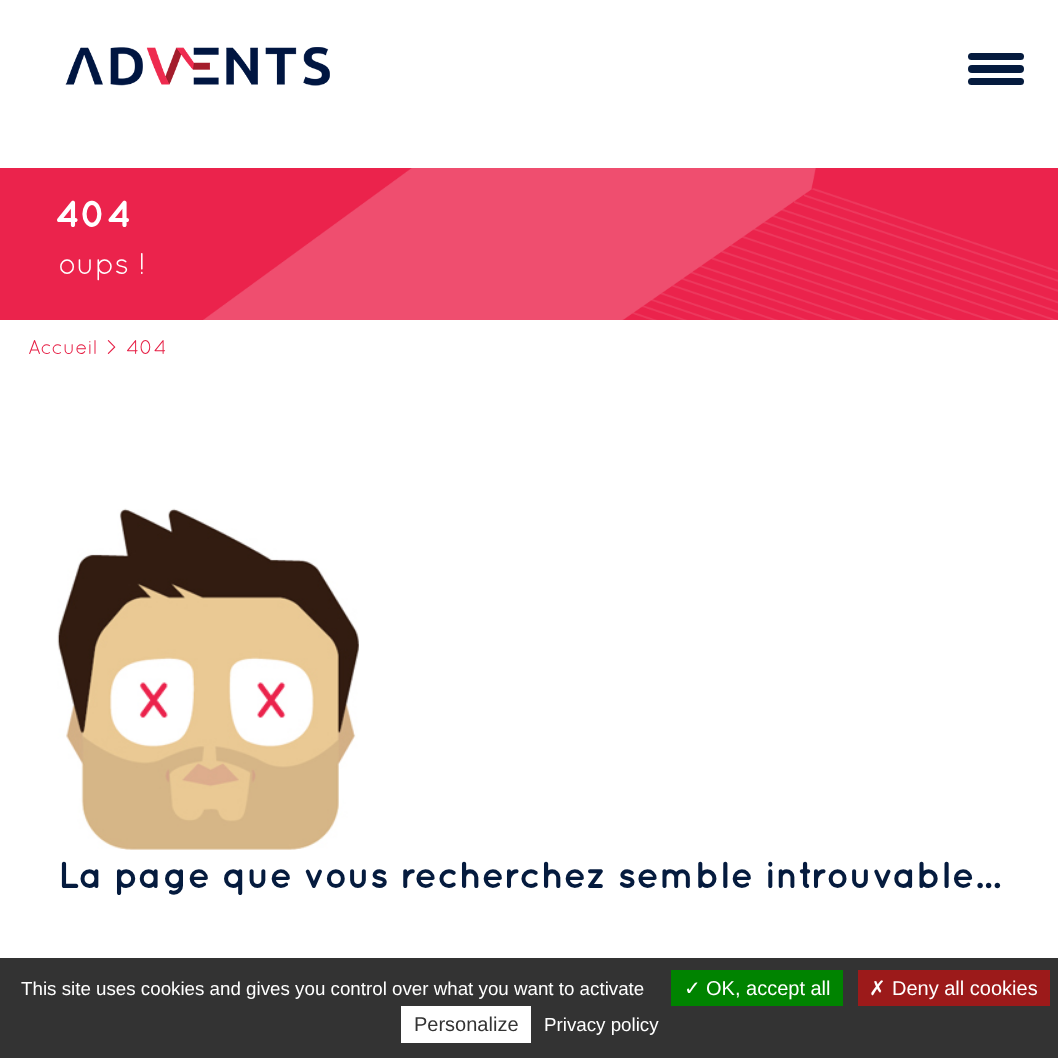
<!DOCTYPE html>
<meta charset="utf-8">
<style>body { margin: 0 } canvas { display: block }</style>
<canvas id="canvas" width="1058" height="1058"></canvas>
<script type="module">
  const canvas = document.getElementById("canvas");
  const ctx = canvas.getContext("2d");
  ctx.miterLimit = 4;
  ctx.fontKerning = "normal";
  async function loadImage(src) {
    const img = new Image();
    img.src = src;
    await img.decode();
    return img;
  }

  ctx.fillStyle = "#ffffff";
  ctx.fillRect(0, 0, 1058, 1058);
  ctx.drawImage(await loadImage("img1.png"), 65, 47, 265, 39);
  ctx.fillStyle = "#051b3e";
  ctx.beginPath();
  ctx.roundRect(968, 53, 56, 7, 3.5);
  ctx.fill();
  ctx.beginPath();
  ctx.roundRect(968, 65, 56, 8, 4);
  ctx.fill();
  ctx.beginPath();
  ctx.roundRect(968, 78, 56, 7, 3.5);
  ctx.fill();
  ctx.fillStyle = "#eb234c";
  ctx.fillRect(0, 168, 1058, 152);
  ctx.drawImage(await loadImage("img2.png"), 203, 168, 855, 152);
  ctx.font = "bold 37.5px Quicksand";
  ctx.fillStyle = "#ffffff";
  ctx.fillText("404", 55, 227);
  ctx.font = "30px Quicksand";
  ctx.fillText("oups !", 58, 274);
  ctx.font = "20px Quicksand";
  ctx.fillStyle = "#e61e44";
  ctx.fillText("Accueil", 28, 354);
  ctx.fillText(">", 106, 354);
  ctx.fillText("404", 126, 354);
  ctx.drawImage(await loadImage("img3.png"), 57, 508, 302, 342);
  ctx.font = "bold 37.5px Quicksand";
  ctx.fillStyle = "#051b3e";
  ctx.fillText("La page que vous recherchez semble introuvable...", 58, 888);
  ctx.fillStyle = "#333333";
  ctx.fillRect(0, 958, 1058, 100);
  ctx.font = "18.75px Liberation Sans";
  ctx.fillStyle = "#ffffff";
  ctx.fillText("This site uses cookies and gives you control over what you want to activate", 21, 995);
  ctx.fillStyle = "#008300";
  ctx.fillRect(671, 970, 172, 36);
  ctx.font = "20px DejaVu Sans";
  ctx.fillStyle = "#ffffff";
  ctx.fillText("✓", 684, 995);
  ctx.font = "20px Liberation Sans";
  ctx.fillText("OK, accept all", 706, 995);
  ctx.fillStyle = "#9c1a1a";
  ctx.fillRect(858, 970, 192, 36);
  ctx.font = "20px DejaVu Sans";
  ctx.fillStyle = "#ffffff";
  ctx.fillText("✗", 869, 995);
  ctx.font = "20px Liberation Sans";
  ctx.fillText("Deny all cookies", 892, 995);
  ctx.fillRect(401, 1006, 130, 37);
  ctx.fillStyle = "#333333";
  ctx.fillText("Personalize", 414, 1031);
  ctx.font = "18.75px Liberation Sans";
  ctx.fillStyle = "#ffffff";
  ctx.fillText("Privacy policy", 544, 1031);
</script>
